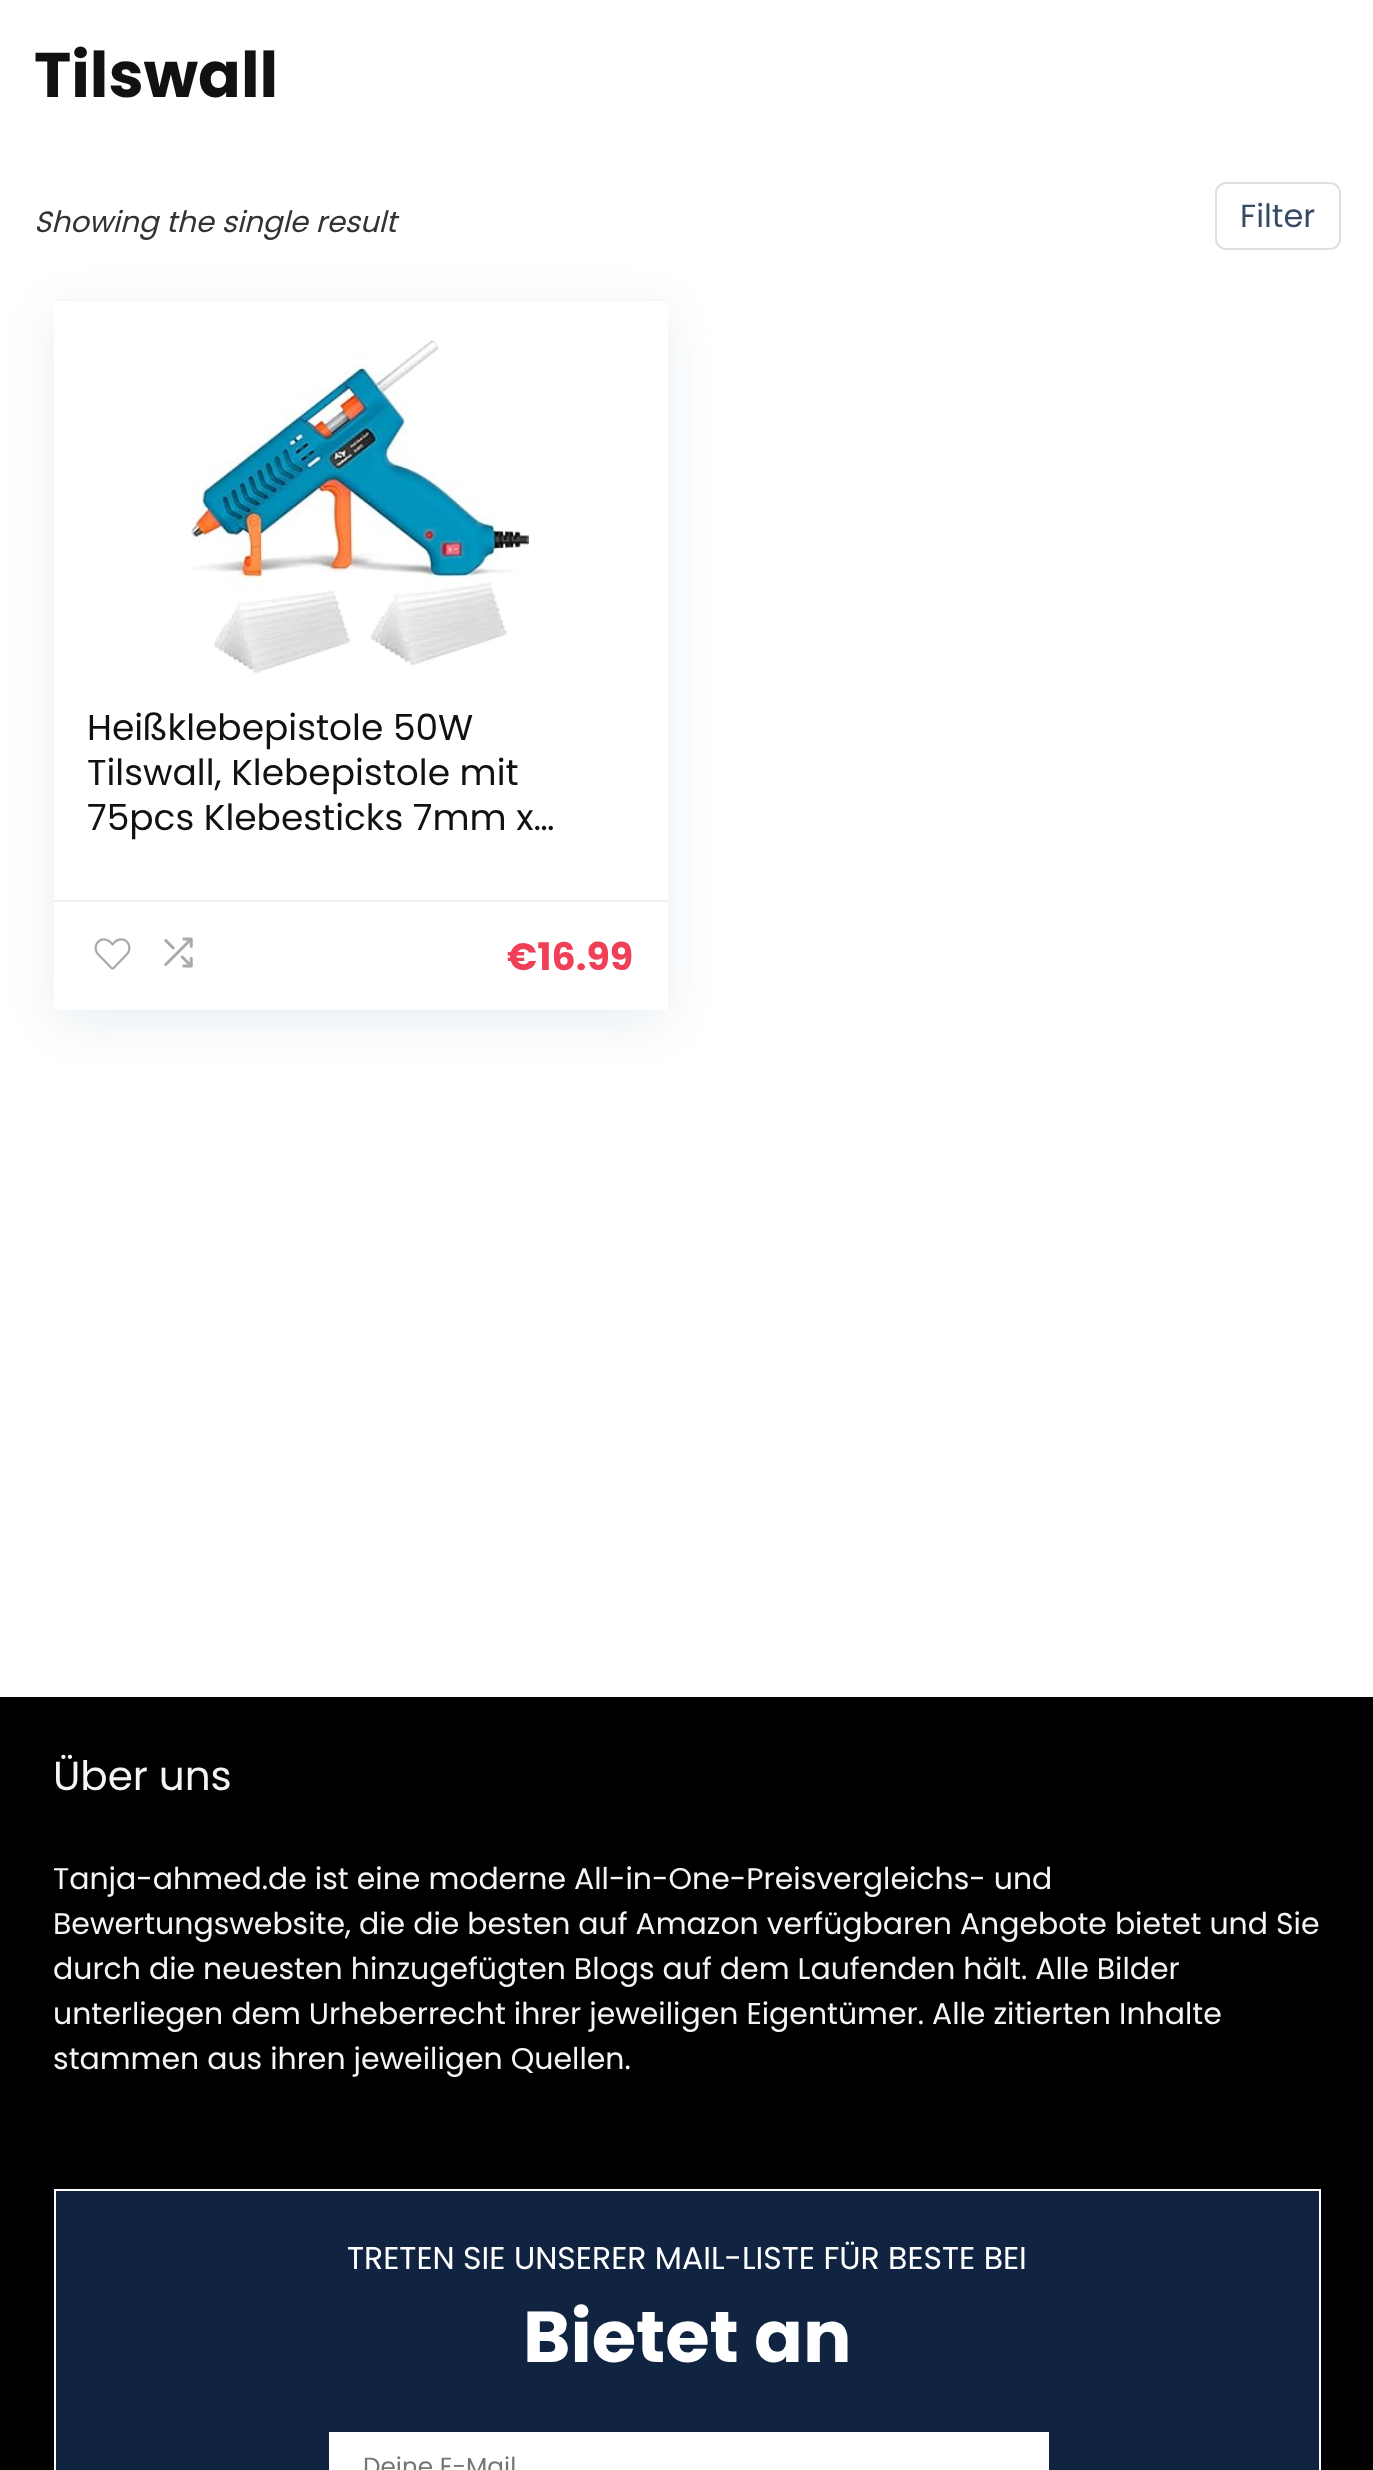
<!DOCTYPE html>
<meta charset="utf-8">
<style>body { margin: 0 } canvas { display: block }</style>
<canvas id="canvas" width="1373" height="2470"></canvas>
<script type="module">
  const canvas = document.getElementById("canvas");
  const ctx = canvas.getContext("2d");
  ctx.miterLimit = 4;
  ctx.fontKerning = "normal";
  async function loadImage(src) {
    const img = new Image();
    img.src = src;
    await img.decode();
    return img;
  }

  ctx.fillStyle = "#ffffff";
  ctx.fillRect(0, 0, 1373, 2470);
  ctx.font = "bold 63px Poppins";
  ctx.fillStyle = "#111111";
  ctx.fillText("Tilswall", 34, 97);
  ctx.font = "italic 29.25px Poppins";
  ctx.fillStyle = "#333333";
  ctx.fillText("Showing the single result", 34, 232);
  ctx.beginPath();
  ctx.roundRect(1216, 183, 124, 66, 10);
  ctx.strokeStyle = "#dce0e0";
  ctx.lineWidth = 2;
  ctx.stroke();
  ctx.font = "32px Poppins";
  ctx.fillStyle = "#364c66";
  ctx.fillText("Filter", 1240, 227);
  ctx.fillStyle = "rgba(188, 207, 219, 0.35)";
  ctx.filter = "blur(26px)";
  ctx.beginPath();
  ctx.rect(54, 311, 614, 711);
  ctx.fill();
  ctx.filter = "none";
  ctx.fillStyle = "#ffffff";
  ctx.fillRect(54, 301, 614, 709);
  ctx.fillStyle = "#f8f8f8";
  ctx.fillRect(54, 299, 614, 2);
  ctx.drawImage(await loadImage("img1.png"), 191, 339, 338, 334);
  ctx.font = "36px Poppins";
  ctx.fillStyle = "#111111";
  ctx.fillText("Heißklebepistole 50W", 87, 740);
  ctx.fillText("Tilswall, Klebepistole mit", 87, 785);
  ctx.fillText("75pcs Klebesticks 7mm x…", 87, 830);
  ctx.fillStyle = "#f0f0f0";
  ctx.fillRect(54, 900, 614, 2);
  ctx.drawImage(await loadImage("img2.png"), 94, 938, 37, 32);
  ctx.drawImage(await loadImage("img3.png"), 164, 937, 29, 31);
  ctx.font = "bold 38px Poppins";
  ctx.fillStyle = "#f04057";
  ctx.fillText("€16.99", 507, 970);
  ctx.fillStyle = "#000000";
  ctx.fillRect(0, 1697, 1373, 773);
  ctx.font = "40.5px Poppins";
  ctx.fillStyle = "#f5f5f5";
  ctx.fillText("Über uns", 53, 1790);
  ctx.font = "29.95px Poppins";
  ctx.fillText("Tanja-ahmed.de ist eine moderne All-in-One-Preisvergleichs- und", 53, 1889);
  ctx.fillText("Bewertungswebsite, die die besten auf Amazon verfügbaren Angebote bietet und Sie", 53, 1934);
  ctx.fillText("durch die neuesten hinzugefügten Blogs auf dem Laufenden hält. Alle Bilder", 53, 1979);
  ctx.fillText("unterliegen dem Urheberrecht ihrer jeweiligen Eigentümer. Alle zitierten Inhalte", 53, 2024);
  ctx.fillText("stammen aus ihren jeweiligen Quellen.", 53, 2069);
  ctx.fillStyle = "#102341";
  ctx.beginPath();
  ctx.rect(55, 2190, 1265, 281);
  ctx.fill();
  ctx.strokeStyle = "#ffffff";
  ctx.stroke();
  ctx.font = "31.5px Poppins";
  ctx.fillStyle = "#ffffff";
  ctx.fillText("TRETEN SIE UNSERER MAIL-LISTE FÜR BESTE BEI", 347, 2269);
  ctx.font = "bold 72px Poppins";
  ctx.fillText("Bietet an", 523, 2362);
  ctx.fillRect(329, 2432, 720, 38);
  ctx.font = "24.75px Poppins";
  ctx.fillStyle = "#757575";
  ctx.fillText("Deine E-Mail", 363, 2475);
</script>
